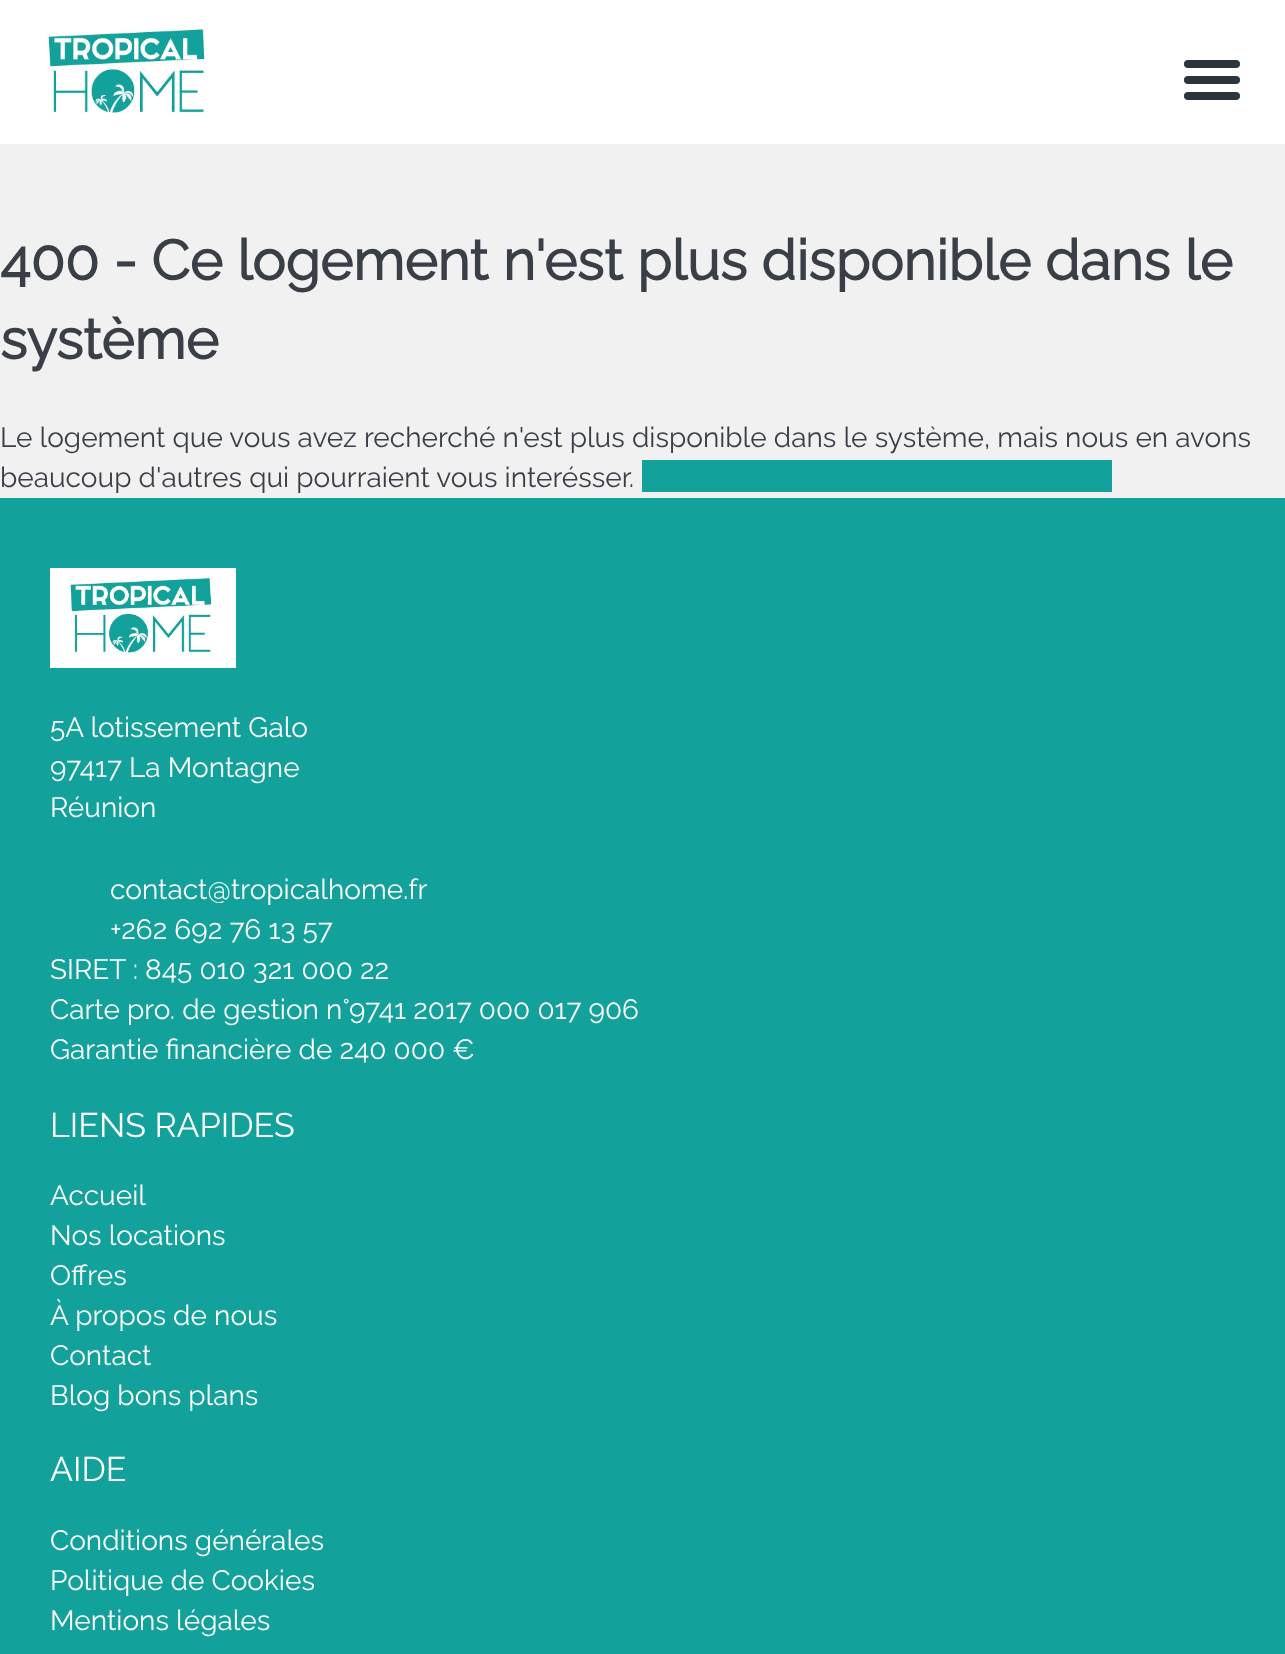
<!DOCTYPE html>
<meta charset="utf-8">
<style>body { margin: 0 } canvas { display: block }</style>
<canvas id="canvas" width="1285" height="1654"></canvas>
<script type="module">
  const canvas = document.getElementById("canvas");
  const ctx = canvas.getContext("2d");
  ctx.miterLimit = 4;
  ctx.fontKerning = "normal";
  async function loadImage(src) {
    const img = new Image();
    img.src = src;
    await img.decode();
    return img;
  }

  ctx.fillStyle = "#f1f1f1";
  ctx.fillRect(0, 0, 1285, 1654);
  ctx.fillStyle = "#ffffff";
  ctx.fillRect(0, 0, 1285, 144);
  ctx.drawImage(await loadImage("img1.png"), 48, 29, 157, 84);
  ctx.fillStyle = "#2b333d";
  ctx.beginPath();
  ctx.roundRect(1184, 60, 56, 8, 4);
  ctx.fill();
  ctx.beginPath();
  ctx.roundRect(1184, 76, 56, 8, 4);
  ctx.fill();
  ctx.beginPath();
  ctx.roundRect(1184, 92, 56, 8, 4);
  ctx.fill();
  ctx.font = "bold 56px Raleway";
  ctx.fillStyle = "#393e47";
  ctx.fillText("400 - Ce logement n'est plus disponible dans le", 0, 280);
  ctx.fillText("système", 0, 359);
  ctx.font = "28px Raleway";
  ctx.fillText("Le logement que vous avez recherché n'est plus disponible dans le système, mais nous en avons", 0, 447);
  ctx.fillText("beaucoup d'autres qui pourraient vous interésser.", 0, 487);
  ctx.fillStyle = "#12a19b";
  ctx.fillRect(642, 460, 470, 32);
  ctx.fillRect(0, 498, 1285, 1156);
  ctx.drawImage(await loadImage("img2.png"), 50, 568, 186, 100);
  ctx.fillStyle = "#ffffff";
  ctx.fillText("5A lotissement Galo", 50, 737);
  ctx.fillText("97417 La Montagne", 50, 777);
  ctx.fillText("Réunion", 50, 817);
  ctx.fillText("contact@tropicalhome.fr", 110, 899);
  ctx.fillText("+262 692 76 13 57", 110, 939);
  ctx.fillText("SIRET : 845 010 321 000 22", 50, 979);
  ctx.fillText("Carte pro. de gestion n°9741 2017 000 017 906", 50, 1019);
  ctx.fillText("Garantie financière de 240 000 €", 50, 1059);
  ctx.font = "34px Raleway";
  ctx.fillText("LIENS RAPIDES", 50, 1137);
  ctx.font = "28px Raleway";
  ctx.fillText("Accueil", 50, 1205);
  ctx.fillText("Nos locations", 50, 1245);
  ctx.fillText("Offres", 50, 1285);
  ctx.fillText("À propos de nous", 50, 1325);
  ctx.fillText("Contact", 50, 1365);
  ctx.fillText("Blog bons plans", 50, 1405);
  ctx.font = "34px Raleway";
  ctx.fillText("AIDE", 50, 1481);
  ctx.font = "28px Raleway";
  ctx.fillText("Conditions générales", 50, 1550);
  ctx.fillText("Politique de Cookies", 50, 1590);
  ctx.fillText("Mentions légales", 50, 1630);
</script>
